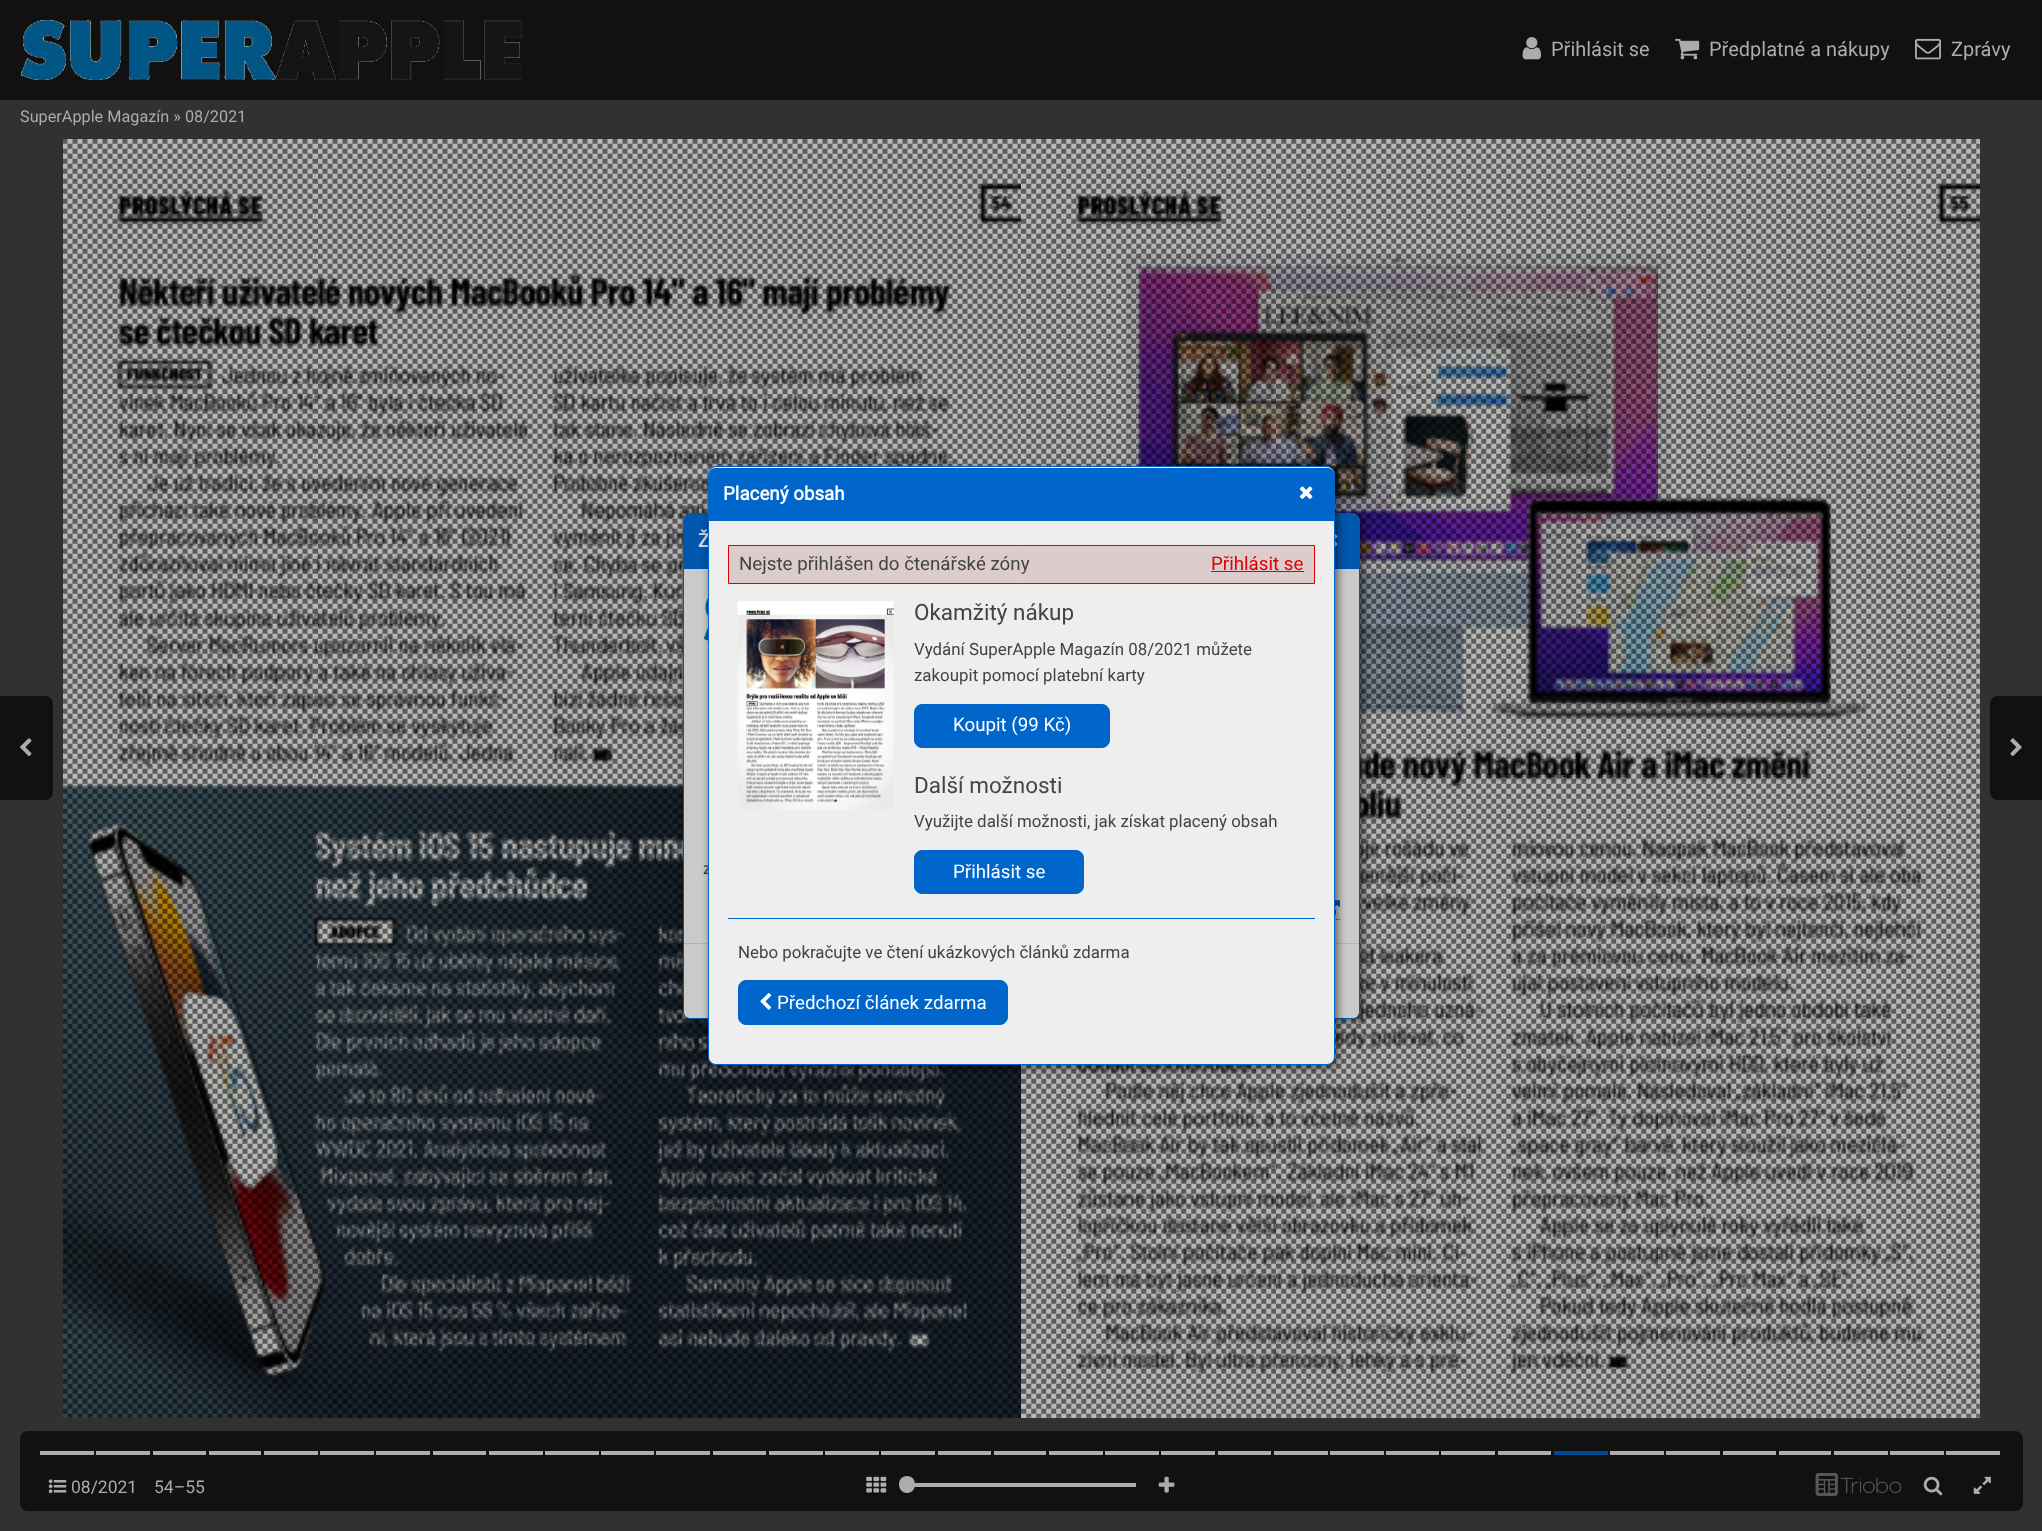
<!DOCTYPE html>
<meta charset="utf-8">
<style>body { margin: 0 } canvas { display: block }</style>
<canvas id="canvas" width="2042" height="1531"></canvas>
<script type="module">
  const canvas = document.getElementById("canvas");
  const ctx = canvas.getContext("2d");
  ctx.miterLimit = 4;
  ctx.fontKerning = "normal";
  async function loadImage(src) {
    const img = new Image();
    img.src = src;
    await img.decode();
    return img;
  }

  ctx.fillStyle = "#313131";
  ctx.fillRect(0, 0, 2042, 1531);
  ctx.fillStyle = "#111111";
  ctx.fillRect(0, 0, 2042, 100);
  ctx.drawImage(await loadImage("img1.png"), 20, 20, 502, 60);
  ctx.drawImage(await loadImage("img2.png"), 1522, 37, 20, 23);
  ctx.font = "20px Roboto";
  ctx.fillStyle = "#acacac";
  ctx.fillText("Přihlásit se", 1551, 56);
  ctx.drawImage(await loadImage("img3.png"), 1675, 38, 25, 22);
  ctx.fillText("Předplatné a nákupy", 1709, 56);
  ctx.drawImage(await loadImage("img4.png"), 1915, 38, 26, 22);
  ctx.fillText("Zprávy", 1951, 56);
  ctx.font = "16.25px Roboto";
  ctx.fillText("SuperApple Magazín » 08/2021", 20, 122);
  ctx.fillStyle = "#111111";
  ctx.beginPath();
  ctx.roundRect(0, 696, 53, 104, [0, 8, 8, 0]);
  ctx.fill();
  ctx.drawImage(await loadImage("img5.png"), 20, 738, 12, 19);
  ctx.beginPath();
  ctx.moveTo(1998, 696);
  ctx.lineTo(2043, 696);
  ctx.lineTo(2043, 800);
  ctx.lineTo(1998, 800);
  ctx.bezierCurveTo(1993.5, 800, 1990, 796.5, 1990, 792);
  ctx.lineTo(1990, 704);
  ctx.bezierCurveTo(1990, 699.5, 1993.5, 696, 1998, 696);
  ctx.closePath();
  ctx.fill();
  ctx.drawImage(await loadImage("img6.png"), 2010, 738, 12, 19);
  ctx.beginPath();
  ctx.roundRect(20, 1431, 2003, 80, 8);
  ctx.fill();
  ctx.fillStyle = "#acacac";
  ctx.fillRect(40, 1451, 54, 4);
  ctx.fillRect(96, 1451, 54, 4);
  ctx.fillRect(153, 1451, 53, 4);
  ctx.fillRect(209, 1451, 52, 4);
  ctx.fillRect(264, 1451, 54, 4);
  ctx.fillRect(320, 1451, 54, 4);
  ctx.fillRect(376, 1451, 54, 4);
  ctx.fillRect(433, 1451, 53, 4);
  ctx.fillRect(489, 1451, 54, 4);
  ctx.fillRect(545, 1451, 54, 4);
  ctx.fillRect(601, 1451, 53, 4);
  ctx.fillRect(656, 1451, 54, 4);
  ctx.fillRect(713, 1451, 53, 4);
  ctx.fillRect(769, 1451, 54, 4);
  ctx.fillRect(825, 1451, 54, 4);
  ctx.fillRect(881, 1451, 54, 4);
  ctx.fillRect(938, 1451, 53, 4);
  ctx.fillRect(994, 1451, 52, 4);
  ctx.fillRect(1049, 1451, 54, 4);
  ctx.fillRect(1105, 1451, 54, 4);
  ctx.fillRect(1161, 1451, 54, 4);
  ctx.fillRect(1218, 1451, 53, 4);
  ctx.fillRect(1274, 1451, 54, 4);
  ctx.fillRect(1330, 1451, 54, 4);
  ctx.fillRect(1386, 1451, 53, 4);
  ctx.fillRect(1441, 1451, 54, 4);
  ctx.fillRect(1498, 1451, 53, 4);
  ctx.fillRect(1610, 1451, 54, 4);
  ctx.fillRect(1666, 1451, 54, 4);
  ctx.fillRect(1723, 1451, 53, 4);
  ctx.fillRect(1779, 1451, 52, 4);
  ctx.fillRect(1834, 1451, 54, 4);
  ctx.fillRect(1890, 1451, 54, 4);
  ctx.fillRect(1946, 1451, 54, 4);
  ctx.fillStyle = "#004a93";
  ctx.fillRect(1554, 1451, 54, 4);
  ctx.drawImage(await loadImage("img7.png"), 48, 1479, 19, 15);
  ctx.font = "17.5px Roboto";
  ctx.fillStyle = "#acacac";
  ctx.fillText("08/2021", 71, 1493);
  ctx.fillText("54–55", 154, 1493);
  ctx.drawImage(await loadImage("img8.png"), 866, 1476, 21, 17);
  ctx.fillRect(906, 1483, 230, 4);
  ctx.beginPath();
  ctx.roundRect(899, 1476, 16, 17, 8);
  ctx.fill();
  ctx.drawImage(await loadImage("img9.png"), 1158, 1476, 17, 17);
  ctx.drawImage(await loadImage("img10.png"), 1815, 1473, 87, 23);
  ctx.drawImage(await loadImage("img11.png"), 1923, 1476, 20, 20);
  ctx.drawImage(await loadImage("img12.png"), 1973, 1476, 18, 18);
  ctx.fillStyle = "#b8b8b8";
  ctx.fillRect(63, 139, 958, 41);
  ctx.drawImage(await loadImage("img14.png"), 63, 180, 958, 1238);
  ctx.drawImage(await loadImage("img13.png"), 63, 139, 958, 1279);
  ctx.fillRect(1021, 139, 959, 1279);
  ctx.drawImage(await loadImage("img16.png"), 1062, 180, 918, 1197);
  ctx.drawImage(await loadImage("img15.png"), 1021, 139, 959, 1279);
  ctx.fillStyle = "rgba(0, 0, 0, 0.53)";
  ctx.filter = "blur(4.5px)";
  ctx.beginPath();
  ctx.roundRect(685, 515, 678, 506, 8);
  ctx.fill();
  ctx.filter = "none";
  ctx.fillStyle = "#cacaca";
  ctx.beginPath();
  ctx.roundRect(683.5, 513.5, 676, 505, 7.5);
  ctx.fill();
  ctx.strokeStyle = "#0057ad";
  ctx.stroke();
  ctx.fillStyle = "#0057ad";
  ctx.beginPath();
  ctx.roundRect(684, 514, 675, 55, [6, 6, 0, 0]);
  ctx.fill();
  ctx.font = "bold 18.75px Roboto";
  ctx.fillStyle = "#d9d9d9";
  ctx.fillText("Ž", 698, 547);
  ctx.drawImage(await loadImage("img17.png"), 1335, 534, 3, 13);
  ctx.drawImage(await loadImage("img18.png"), 703, 597, 5, 44);
  ctx.font = "16.25px Roboto";
  ctx.fillStyle = "#3a3a3a";
  ctx.fillText("z", 703, 874);
  ctx.beginPath();
  ctx.moveTo(1321, 919.5);
  ctx.lineTo(1340, 919.5);
  ctx.lineWidth = 1.2;
  ctx.setLineDash([1.25, 1.25]);
  ctx.stroke();
  ctx.drawImage(await loadImage("img19.png"), 1335, 900, 5, 16);
  ctx.fillStyle = "#cacaca";
  ctx.beginPath();
  ctx.roundRect(684, 943, 675, 75, [0, 0, 6, 6]);
  ctx.fill();
  ctx.fillStyle = "#b3b3b3";
  ctx.fillRect(684, 943, 675, 1);
  ctx.fillStyle = "rgba(0, 0, 0, 0.53)";
  ctx.filter = "blur(4.5px)";
  ctx.beginPath();
  ctx.roundRect(710, 469, 628, 599, 8);
  ctx.fill();
  ctx.filter = "none";
  ctx.fillStyle = "#eeeeee";
  ctx.beginPath();
  ctx.roundRect(708.5, 466.5, 626, 598, 7.5);
  ctx.fill();
  ctx.strokeStyle = "#0066cc";
  ctx.lineWidth = 1;
  ctx.setLineDash([]);
  ctx.stroke();
  ctx.fillStyle = "#0066cc";
  ctx.beginPath();
  ctx.roundRect(709, 468, 625, 53, [6, 6, 0, 0]);
  ctx.fill();
  ctx.font = "bold 18.75px Roboto";
  ctx.fillStyle = "#ffffff";
  ctx.fillText("Placený obsah", 723, 500);
  ctx.drawImage(await loadImage("img20.png"), 1299, 486, 14, 13);
  ctx.fillStyle = "#ddcccc";
  ctx.beginPath();
  ctx.rect(728.5, 545.5, 586, 38);
  ctx.fill();
  ctx.strokeStyle = "#dd0000";
  ctx.stroke();
  ctx.font = "18.75px Roboto";
  ctx.fillStyle = "#444444";
  ctx.fillText("Nejste přihlášen do čtenářské zóny", 739, 570);
  ctx.fillStyle = "#dd0000";
  ctx.fillText("Přihlásit se", 1211, 570);
  ctx.fillRect(1211, 571, 93, 1);
  ctx.drawImage(await loadImage("img21.png"), 737, 601, 157, 209);
  ctx.font = "22.5px Roboto";
  ctx.fillStyle = "#444444";
  ctx.fillText("Okamžitý nákup", 914, 620);
  ctx.font = "16.9px Roboto";
  ctx.fillText("Vydání SuperApple Magazín 08/2021 můžete", 914, 655);
  ctx.fillText("zakoupit pomocí platební karty", 914, 681);
  ctx.fillStyle = "#0066cc";
  ctx.beginPath();
  ctx.roundRect(914.5, 704.5, 195, 43, 7.5);
  ctx.fill();
  ctx.strokeStyle = "#0066cc";
  ctx.stroke();
  ctx.font = "18.75px Roboto";
  ctx.fillStyle = "#ffffff";
  ctx.fillText("Koupit (99 Kč)", 953, 731);
  ctx.font = "22.5px Roboto";
  ctx.fillStyle = "#444444";
  ctx.fillText("Další možnosti", 914, 793);
  ctx.font = "16.9px Roboto";
  ctx.fillText("Využijte další možnosti, jak získat placený obsah", 914, 827);
  ctx.fillStyle = "#0066cc";
  ctx.beginPath();
  ctx.roundRect(914.5, 850.5, 169, 43, 7.5);
  ctx.fill();
  ctx.stroke();
  ctx.font = "18.75px Roboto";
  ctx.fillStyle = "#ffffff";
  ctx.fillText("Přihlásit se", 953, 878);
  ctx.fillStyle = "#0066cc";
  ctx.fillRect(728, 918, 587, 1);
  ctx.font = "16.9px Roboto";
  ctx.fillStyle = "#444444";
  ctx.fillText("Nebo pokračujte ve čtení ukázkových článků zdarma", 738, 958);
  ctx.fillStyle = "#0066cc";
  ctx.beginPath();
  ctx.roundRect(738.5, 980.5, 269, 44, 7.5);
  ctx.fill();
  ctx.stroke();
  ctx.drawImage(await loadImage("img22.png"), 760, 993, 12, 17);
  ctx.font = "18.75px Roboto";
  ctx.fillStyle = "#ffffff";
  ctx.fillText("Předchozí článek zdarma", 777, 1009);
</script>
